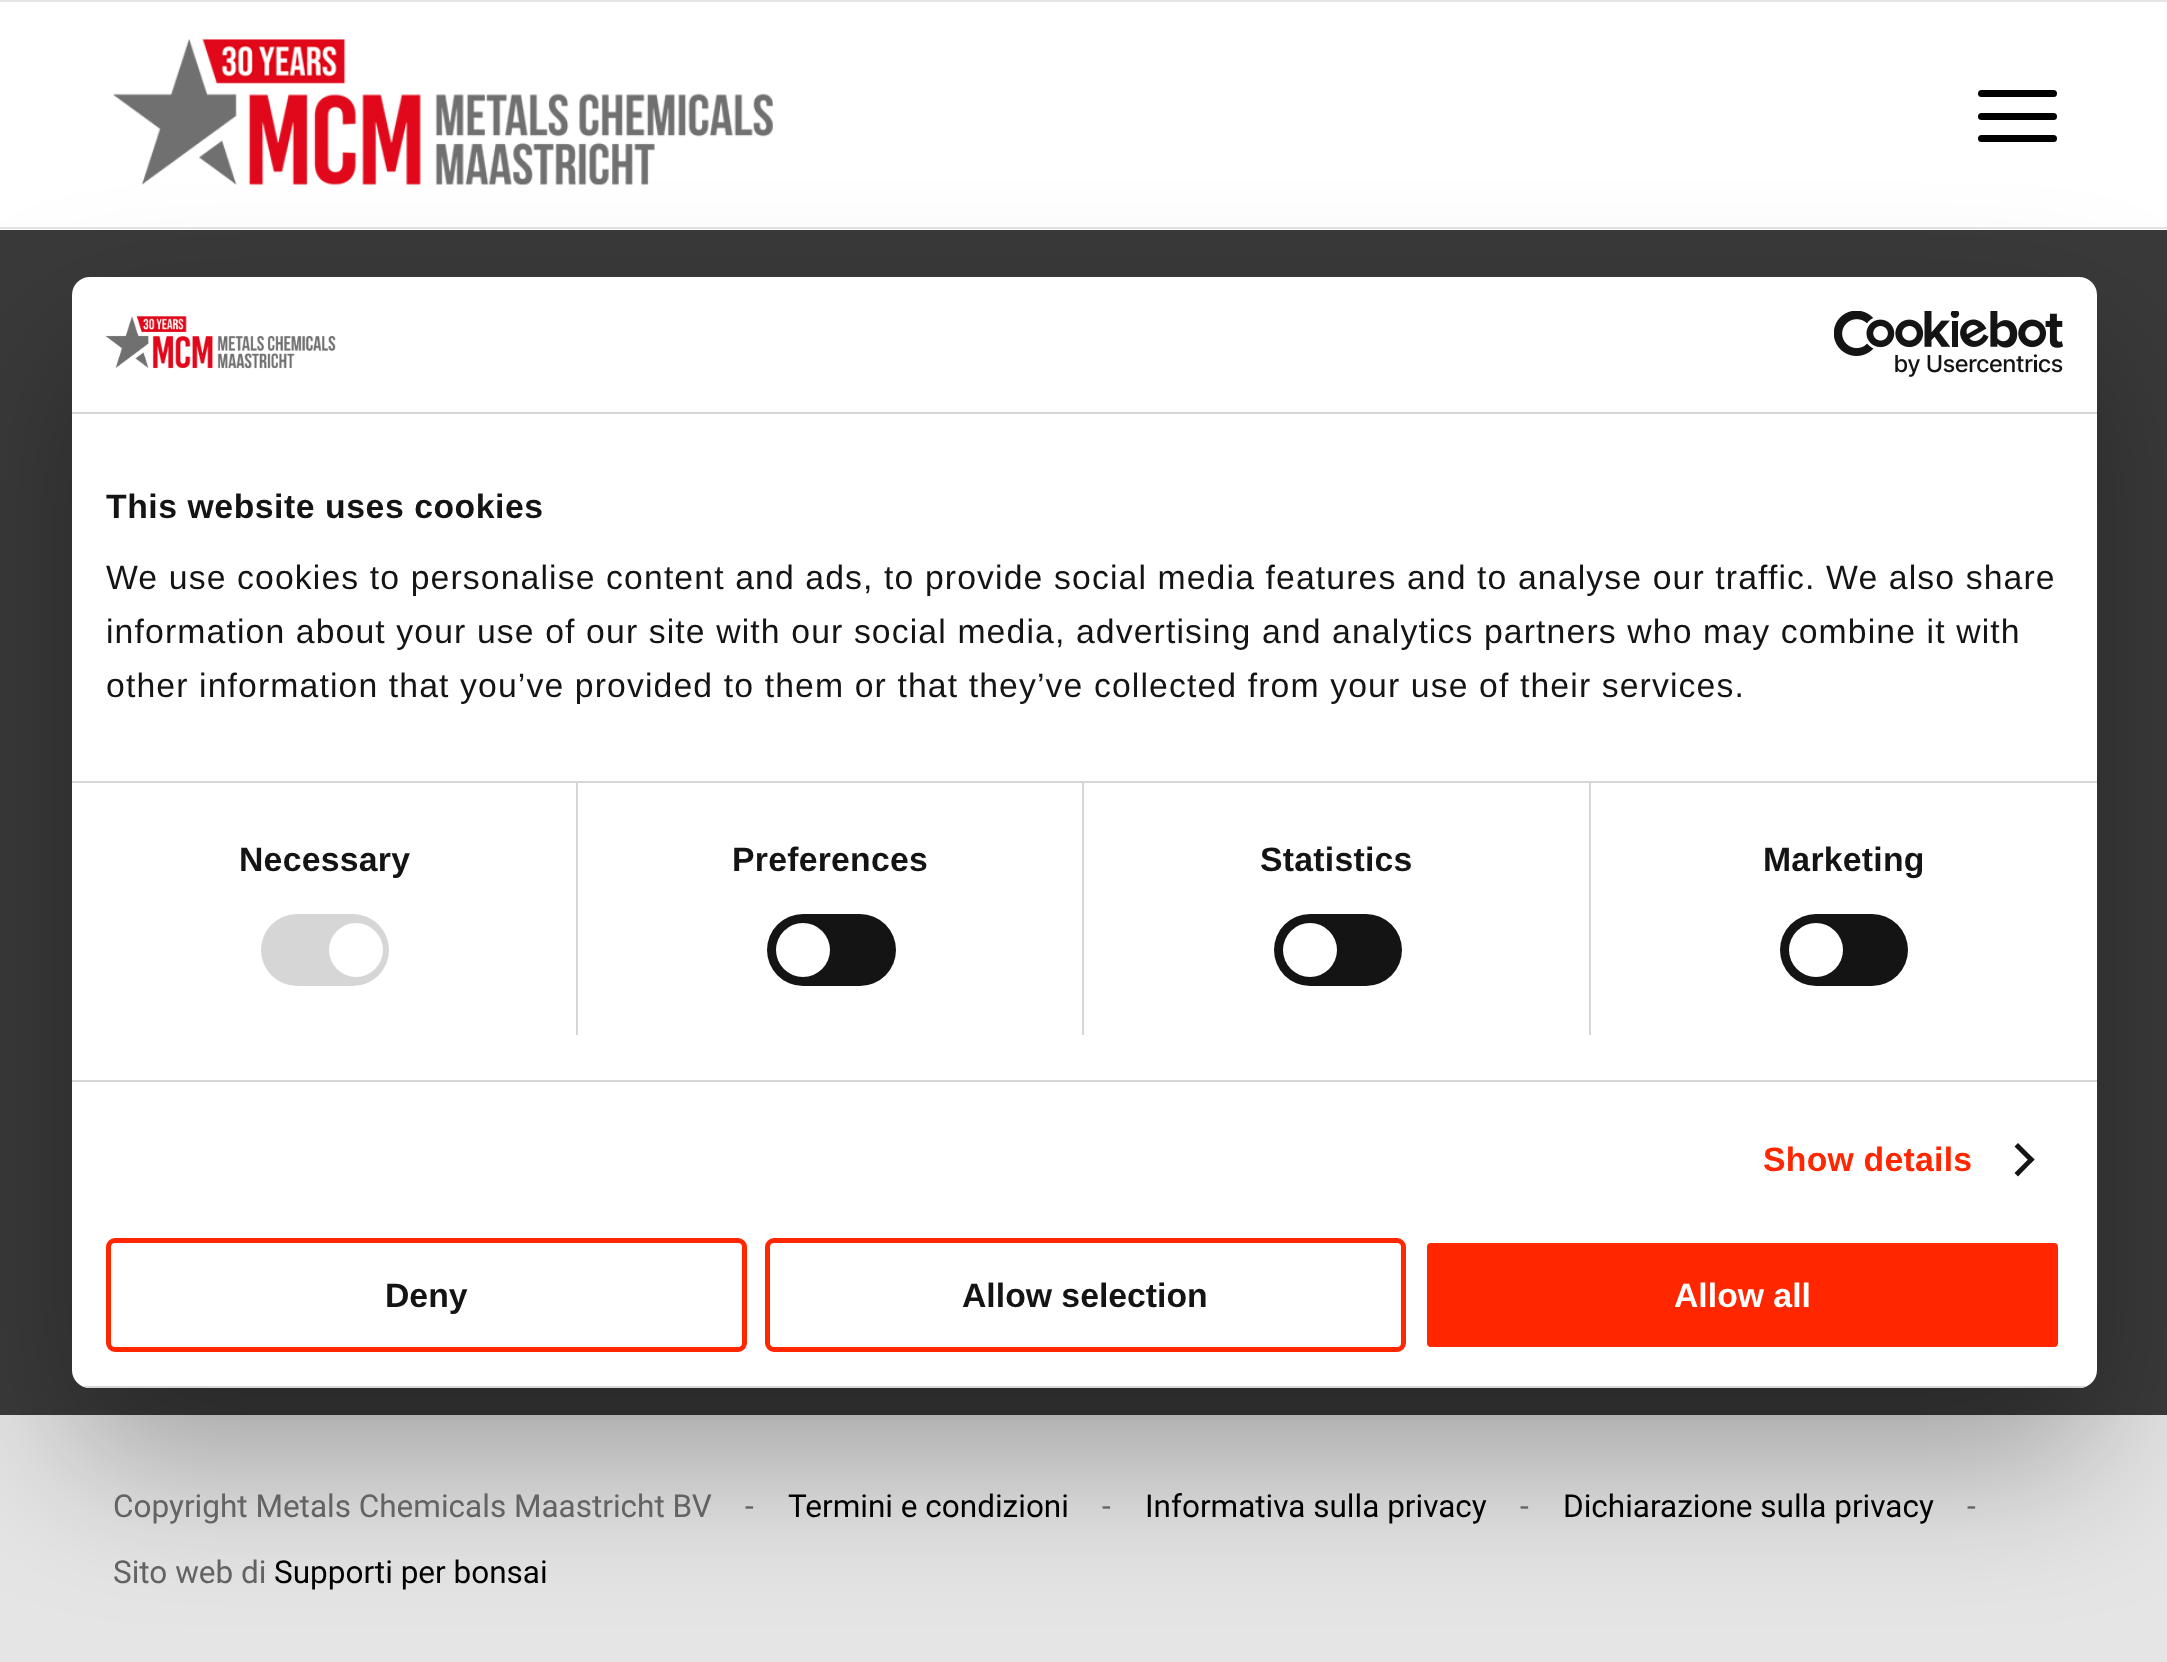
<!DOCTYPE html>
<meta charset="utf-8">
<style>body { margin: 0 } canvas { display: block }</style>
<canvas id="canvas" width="2167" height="1662"></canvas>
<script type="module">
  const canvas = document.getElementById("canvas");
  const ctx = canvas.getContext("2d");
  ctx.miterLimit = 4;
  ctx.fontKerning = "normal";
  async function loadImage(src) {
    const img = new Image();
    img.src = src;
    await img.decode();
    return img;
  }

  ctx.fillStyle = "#3b3a3b";
  ctx.fillRect(0, 0, 2167, 1662);
  ctx.fillStyle = "#ffffff";
  ctx.fillRect(0, 2, 2167, 228);
  ctx.fillStyle = "#e5e5e5";
  ctx.fillRect(0, 227, 2167, 2);
  ctx.drawImage(await loadImage("img3.png"), 113, 39, 660, 146);
  ctx.fillStyle = "#000000";
  ctx.beginPath();
  ctx.roundRect(1978, 113, 79, 7, 3.5);
  ctx.fill();
  ctx.beginPath();
  ctx.roundRect(1978, 135, 79, 7, 3.5);
  ctx.fill();
  ctx.fillStyle = "#e5e5e5";
  ctx.fillRect(0, 1415, 2167, 247);
  ctx.fillStyle = "rgba(0, 0, 0, 0.3)";
  ctx.filter = "blur(76.5px)";
  ctx.beginPath();
  ctx.roundRect(72, 349, 2025, 1111, 18);
  ctx.fill();
  ctx.filter = "none";
  ctx.fillStyle = "#ffffff";
  ctx.beginPath();
  ctx.roundRect(72, 277, 2025, 1111, 18);
  ctx.fill();
  ctx.fillStyle = "#d6d6d6";
  ctx.fillRect(72, 412, 2025, 2);
  ctx.drawImage(await loadImage("img1.png"), 105, 316, 231, 53);
  ctx.drawImage(await loadImage("img2.png"), 1834, 311, 229, 66);
  ctx.fillRect(72, 781, 2025, 2);
  ctx.letterSpacing = "0.55px";
  ctx.font = "bold 33.75px Liberation Sans";
  ctx.fillStyle = "#141414";
  ctx.fillText("This website uses cookies", 106, 518);
  ctx.letterSpacing = "1.12px";
  ctx.font = "33.75px Liberation Sans";
  ctx.fillText("We use cookies to personalise content and ads, to provide social media features and to analyse our traffic. We also share", 106, 589);
  ctx.fillText("information about your use of our site with our social media, advertising and analytics partners who may combine it with", 106, 643);
  ctx.fillText("other information that you’ve provided to them or that they’ve collected from your use of their services.", 106, 697);
  ctx.fillStyle = "#d6d6d6";
  ctx.fillRect(72, 1080, 2025, 2);
  ctx.fillRect(576, 783, 2, 252);
  ctx.letterSpacing = "0.25px";
  ctx.font = "bold 33.75px Liberation Sans";
  ctx.fillStyle = "#141414";
  ctx.fillText("Necessary", 239, 871);
  ctx.fillStyle = "#d6d6d6";
  ctx.beginPath();
  ctx.roundRect(261, 914, 128, 72, 36);
  ctx.fill();
  ctx.fillStyle = "#ffffff";
  ctx.beginPath();
  ctx.arc(356, 950, 27, 0, Math.PI * 2);
  ctx.fill();
  ctx.fillStyle = "#d6d6d6";
  ctx.fillRect(1082, 783, 2, 252);
  ctx.fillStyle = "#141414";
  ctx.fillText("Preferences", 732, 871);
  ctx.beginPath();
  ctx.roundRect(767, 914, 129, 72, 36);
  ctx.fill();
  ctx.fillStyle = "#ffffff";
  ctx.beginPath();
  ctx.arc(803, 950, 27, 0, Math.PI * 2);
  ctx.fill();
  ctx.fillStyle = "#d6d6d6";
  ctx.fillRect(1589, 783, 2, 252);
  ctx.fillStyle = "#141414";
  ctx.fillText("Statistics", 1260, 871);
  ctx.beginPath();
  ctx.roundRect(1274, 914, 128, 72, 36);
  ctx.fill();
  ctx.fillStyle = "#ffffff";
  ctx.beginPath();
  ctx.arc(1310, 950, 27, 0, Math.PI * 2);
  ctx.fill();
  ctx.fillStyle = "#141414";
  ctx.fillText("Marketing", 1763, 871);
  ctx.beginPath();
  ctx.roundRect(1780, 914, 128, 72, 36);
  ctx.fill();
  ctx.fillStyle = "#ffffff";
  ctx.beginPath();
  ctx.arc(1816, 950, 27, 0, Math.PI * 2);
  ctx.fill();
  ctx.fillStyle = "#ff2600";
  ctx.fillText("Show details", 1763, 1171);
  ctx.fillStyle = "#141414";
  ctx.beginPath();
  ctx.moveTo(2018, 1143);
  ctx.lineTo(2034.5, 1159.5);
  ctx.lineTo(2031, 1163);
  ctx.lineTo(2014.5, 1146.5);
  ctx.closePath();
  ctx.fill();
  ctx.beginPath();
  ctx.moveTo(2031, 1156.5);
  ctx.lineTo(2034.5, 1159.5);
  ctx.lineTo(2018, 1176.5);
  ctx.lineTo(2014.5, 1173);
  ctx.closePath();
  ctx.fill();
  ctx.save();
  ctx.beginPath();
  ctx.roundRect(72, 277, 2025, 1111, 18);
  ctx.clip();
  ctx.fillStyle = "#d6d6d6";
  ctx.fillRect(82, 1386, 2005, 2);
  ctx.restore();
  ctx.beginPath();
  ctx.roundRect(108.5, 1240.5, 636, 109, 6.5);
  ctx.strokeStyle = "#ff2600";
  ctx.lineWidth = 5;
  ctx.stroke();
  ctx.letterSpacing = "0px";
  ctx.fillText("Deny", 385, 1307);
  ctx.beginPath();
  ctx.roundRect(767.5, 1240.5, 636, 109, 6.5);
  ctx.stroke();
  ctx.fillText("Allow selection", 962, 1307);
  ctx.fillStyle = "#ff2600";
  ctx.beginPath();
  ctx.roundRect(1424.5, 1240.5, 636, 109, 6.5);
  ctx.fill();
  ctx.strokeStyle = "#ffffff";
  ctx.stroke();
  ctx.fillStyle = "#ffffff";
  ctx.fillText("Allow all", 1674, 1307);
  ctx.fillStyle = "#e5e5e5";
  ctx.fillRect(0, 0, 2167, 2);
  ctx.fillStyle = "#000000";
  ctx.beginPath();
  ctx.roundRect(1978, 90, 79, 7, 3.5);
  ctx.fill();
  ctx.font = "31.5px Roboto";
  ctx.fillStyle = "#636363";
  ctx.fillText("Copyright Metals Chemicals Maastricht BV", 113, 1517);
  ctx.fillText("-", 745, 1517);
  ctx.fillStyle = "#000000";
  ctx.fillText("Termini e condizioni", 788, 1517);
  ctx.fillStyle = "#636363";
  ctx.fillText("-", 1102, 1517);
  ctx.fillStyle = "#000000";
  ctx.fillText("Informativa sulla privacy", 1145, 1517);
  ctx.fillStyle = "#636363";
  ctx.fillText("-", 1520, 1517);
  ctx.fillStyle = "#000000";
  ctx.fillText("Dichiarazione sulla privacy", 1563, 1517);
  ctx.fillStyle = "#636363";
  ctx.fillText("-", 1967, 1517);
  ctx.fillText("Sito web di", 113, 1583);
  ctx.fillStyle = "#000000";
  ctx.fillText("Supporti per bonsai", 274, 1583);
</script>
